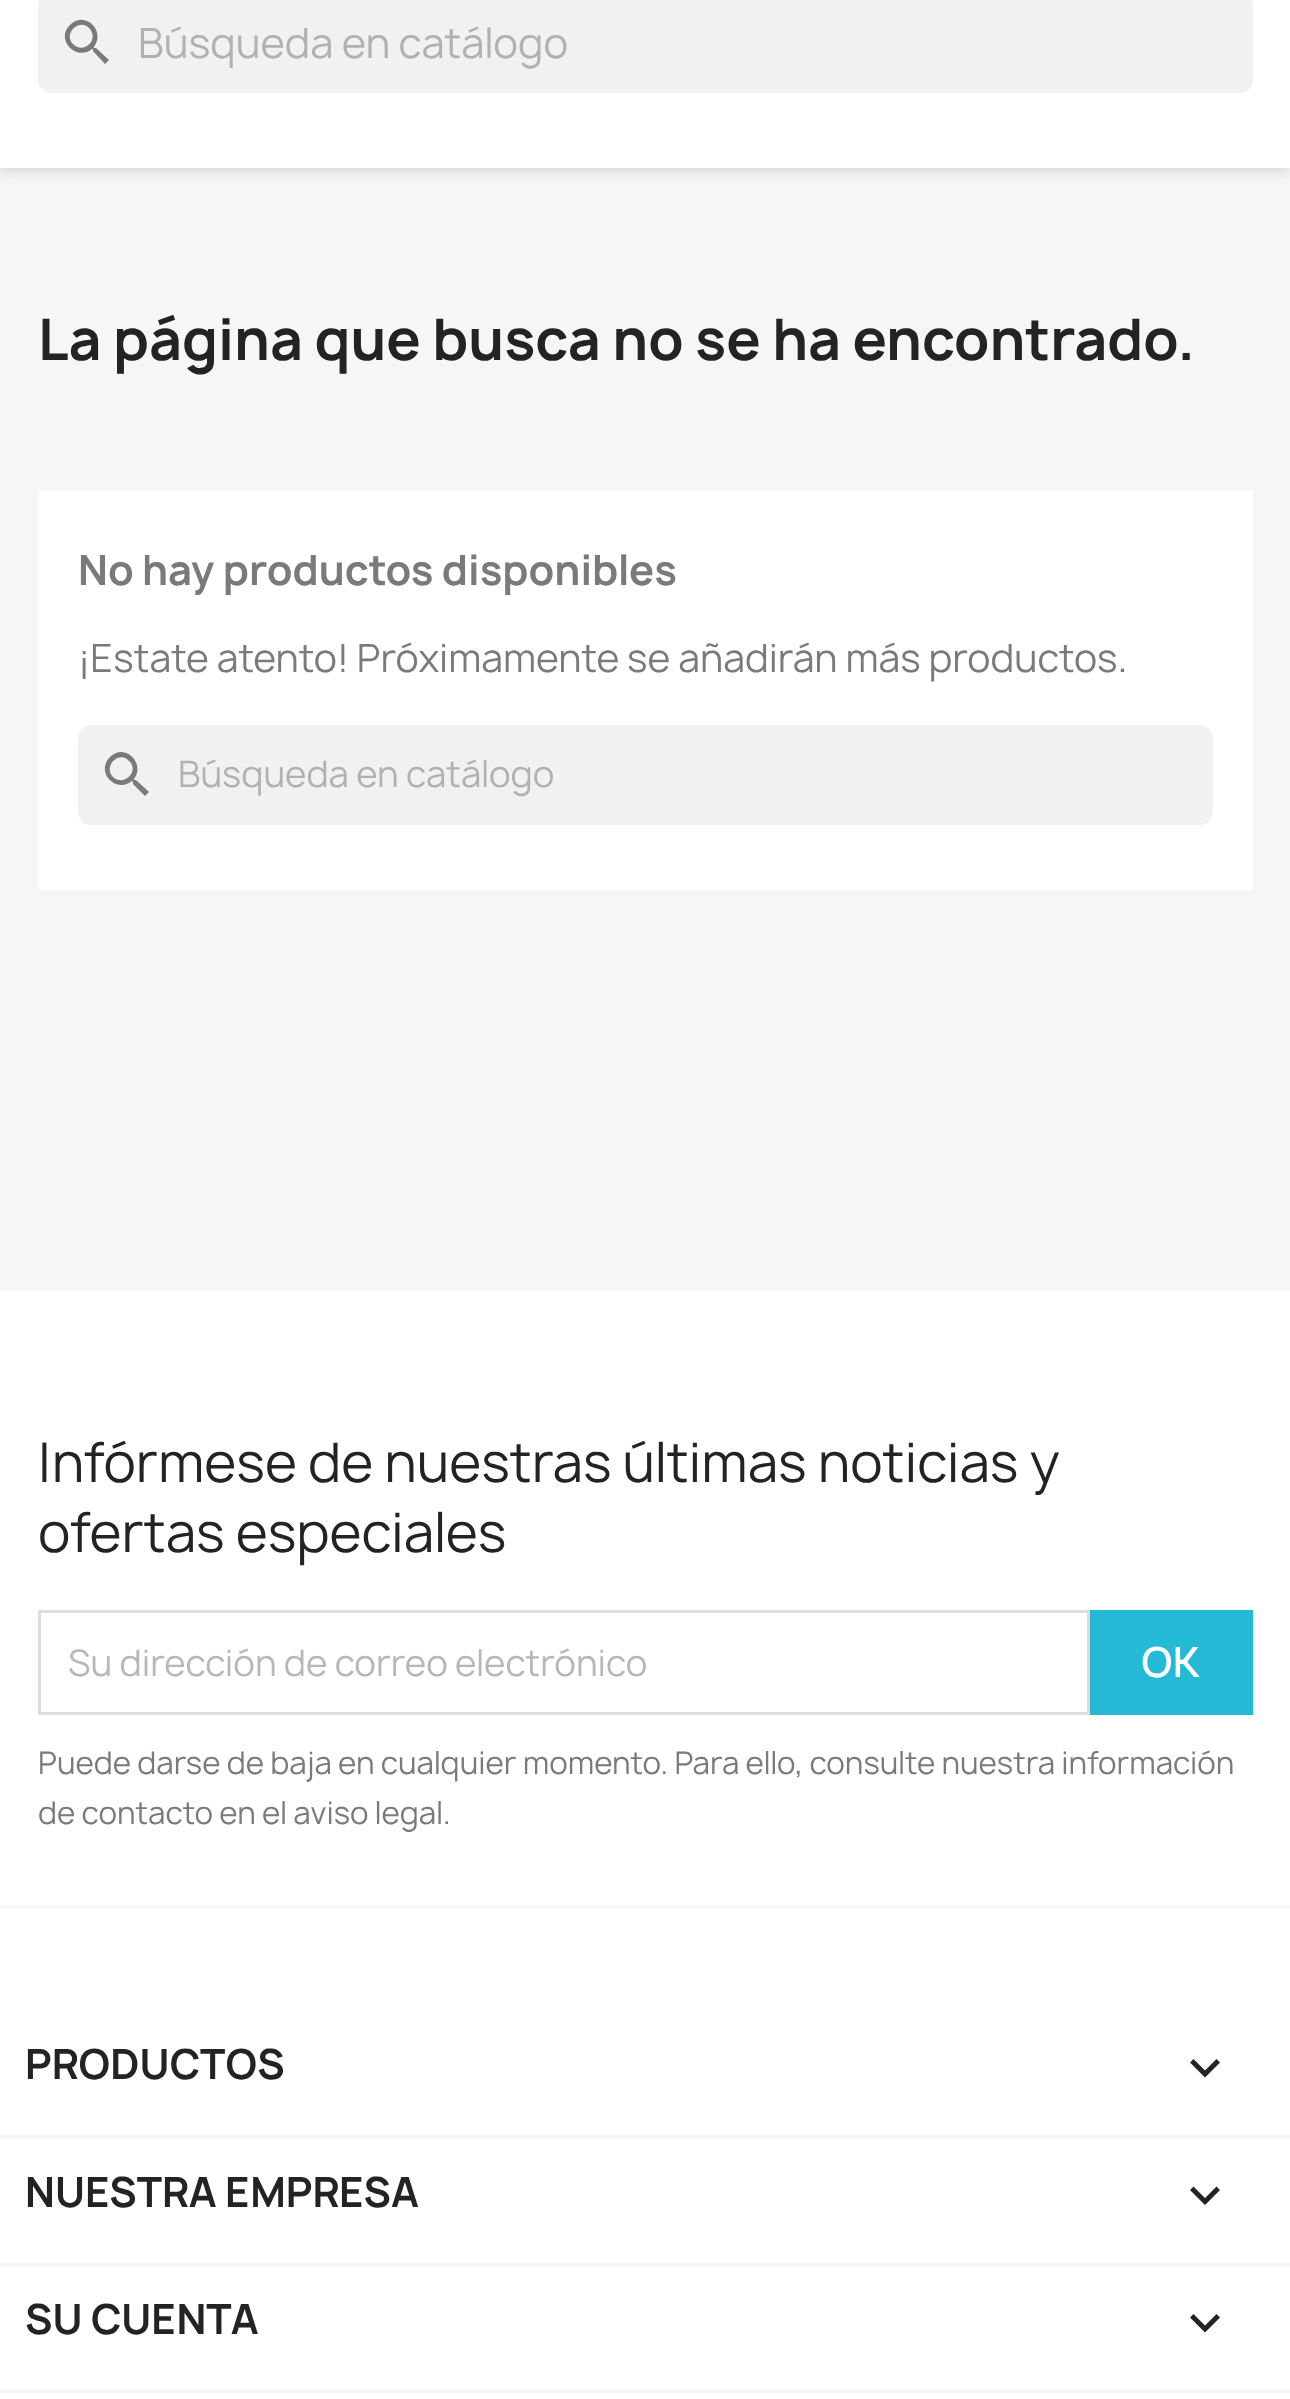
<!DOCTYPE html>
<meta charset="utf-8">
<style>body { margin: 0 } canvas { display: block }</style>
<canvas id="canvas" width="1290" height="2399"></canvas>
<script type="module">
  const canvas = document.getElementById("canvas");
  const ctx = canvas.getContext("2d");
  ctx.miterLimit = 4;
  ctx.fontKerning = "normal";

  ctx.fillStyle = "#ffffff";
  ctx.fillRect(0, 0, 1290, 2399);
  ctx.fillStyle = "#f6f6f6";
  ctx.fillRect(0, 168, 1290, 1122);
  ctx.fillStyle = "rgba(0, 0, 0, 0.11)";
  ctx.filter = "blur(6px)";
  ctx.beginPath();
  ctx.rect(0, -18, 1290, 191);
  ctx.fill();
  ctx.filter = "none";
  ctx.fillStyle = "#ffffff";
  ctx.fillRect(0, 0, 1290, 168);
  ctx.fillStyle = "#f1f1f1";
  ctx.beginPath();
  ctx.roundRect(38, -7, 1215, 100, 13);
  ctx.fill();
  ctx.fillStyle = "#7a7a7a";
  ctx.beginPath();
  ctx.moveTo(73, 44);
  ctx.bezierCurveTo(84, 55, 100, 39, 89, 28);
  ctx.bezierCurveTo(79, 18, 63, 34, 73, 44);
  ctx.closePath();
  ctx.moveTo(96, 48);
  ctx.lineTo(109, 60);
  ctx.lineTo(105, 64);
  ctx.lineTo(93, 51);
  ctx.lineTo(93, 49);
  ctx.lineTo(92, 49);
  ctx.bezierCurveTo(76, 62, 55, 39, 70, 25);
  ctx.bezierCurveTo(85, 10, 106, 31, 94, 47);
  ctx.lineTo(94, 48);
  ctx.closePath();
  ctx.fill();
  ctx.font = "40px Manrope";
  ctx.fillStyle = "#b1b1b1";
  ctx.fillText("Búsqueda en catálogo", 138, 58);
  ctx.font = "bold 55px Manrope";
  ctx.fillStyle = "#232323";
  ctx.fillText("La página que busca no se ha encontrado.", 38, 360);
  ctx.fillStyle = "#ffffff";
  ctx.fillRect(38, 490, 1215, 400);
  ctx.font = "bold 40px Manrope";
  ctx.fillStyle = "#7a7a7a";
  ctx.fillText("No hay productos disponibles", 78, 585);
  ctx.font = "37.5px Manrope";
  ctx.fillText("¡Estate atento! Próximamente se añadirán más productos.", 78, 672);
  ctx.fillStyle = "#f1f1f1";
  ctx.beginPath();
  ctx.roundRect(78, 725, 1135, 100, 13);
  ctx.fill();
  ctx.fillStyle = "#7a7a7a";
  ctx.beginPath();
  ctx.moveTo(113, 777);
  ctx.bezierCurveTo(124, 787, 140, 771, 129, 761);
  ctx.bezierCurveTo(119, 750, 103, 766, 113, 777);
  ctx.closePath();
  ctx.moveTo(136, 780);
  ctx.lineTo(149, 792);
  ctx.lineTo(145, 796);
  ctx.lineTo(133, 784);
  ctx.lineTo(133, 782);
  ctx.lineTo(132, 781);
  ctx.bezierCurveTo(116, 794, 95, 772, 110, 757);
  ctx.bezierCurveTo(125, 742, 146, 764, 134, 779);
  ctx.lineTo(134, 780);
  ctx.closePath();
  ctx.fill();
  ctx.font = "35px Manrope";
  ctx.fillStyle = "#b1b1b1";
  ctx.fillText("Búsqueda en catálogo", 178, 787);
  ctx.fillStyle = "#f6f6f6";
  ctx.fillRect(0, 1905, 1290, 3);
  ctx.font = "52.5px Manrope";
  ctx.fillStyle = "#232323";
  ctx.fillText("Infórmese de nuestras últimas noticias y", 38, 1482);
  ctx.fillText("ofertas especiales", 38, 1552);
  ctx.strokeStyle = "#dddddd";
  ctx.lineWidth = 3;
  ctx.strokeRect(39.5, 1611.5, 1049, 102);
  ctx.font = "35px Manrope";
  ctx.fillStyle = "#b7b7b7";
  ctx.fillText("Su dirección de correo electrónico", 68, 1676);
  ctx.fillStyle = "#24b9d7";
  ctx.fillRect(1090, 1610, 163, 105);
  ctx.font = "600 40px Manrope";
  ctx.fillStyle = "#ffffff";
  ctx.fillText("OK", 1141, 1677);
  ctx.font = "30px Manrope";
  ctx.fillStyle = "#7a7a7a";
  ctx.fillText("Puede darse de baja en cualquier momento. Para ello, consulte nuestra información", 38, 1774);
  ctx.fillText("de contacto en el aviso legal.", 38, 1824);
  ctx.fillStyle = "#f6f6f6";
  ctx.fillRect(0, 2135, 1290, 3);
  ctx.font = "bold 40px Manrope";
  ctx.fillStyle = "#232323";
  ctx.fillText("PRODUCTOS", 25, 2079);
  ctx.beginPath();
  ctx.moveTo(1193.5, 2059);
  ctx.lineTo(1205, 2070.5);
  ctx.lineTo(1216.5, 2059);
  ctx.lineTo(1220, 2062.5);
  ctx.lineTo(1205, 2077.5);
  ctx.lineTo(1190, 2062.5);
  ctx.closePath();
  ctx.fill();
  ctx.fillStyle = "#f6f6f6";
  ctx.fillRect(0, 2263, 1290, 3);
  ctx.fillStyle = "#232323";
  ctx.fillText("NUESTRA EMPRESA", 25, 2207);
  ctx.beginPath();
  ctx.moveTo(1193.5, 2186.5);
  ctx.lineTo(1205, 2198);
  ctx.lineTo(1216.5, 2186.5);
  ctx.lineTo(1220, 2190);
  ctx.lineTo(1205, 2205);
  ctx.lineTo(1190, 2190);
  ctx.closePath();
  ctx.fill();
  ctx.fillStyle = "#f6f6f6";
  ctx.fillRect(0, 2390, 1290, 3);
  ctx.fillStyle = "#232323";
  ctx.fillText("SU CUENTA", 25, 2334);
  ctx.beginPath();
  ctx.moveTo(1193.5, 2314);
  ctx.lineTo(1205, 2325.5);
  ctx.lineTo(1216.5, 2314);
  ctx.lineTo(1220, 2317.5);
  ctx.lineTo(1205, 2332.5);
  ctx.lineTo(1190, 2317.5);
  ctx.closePath();
  ctx.fill();
</script>
